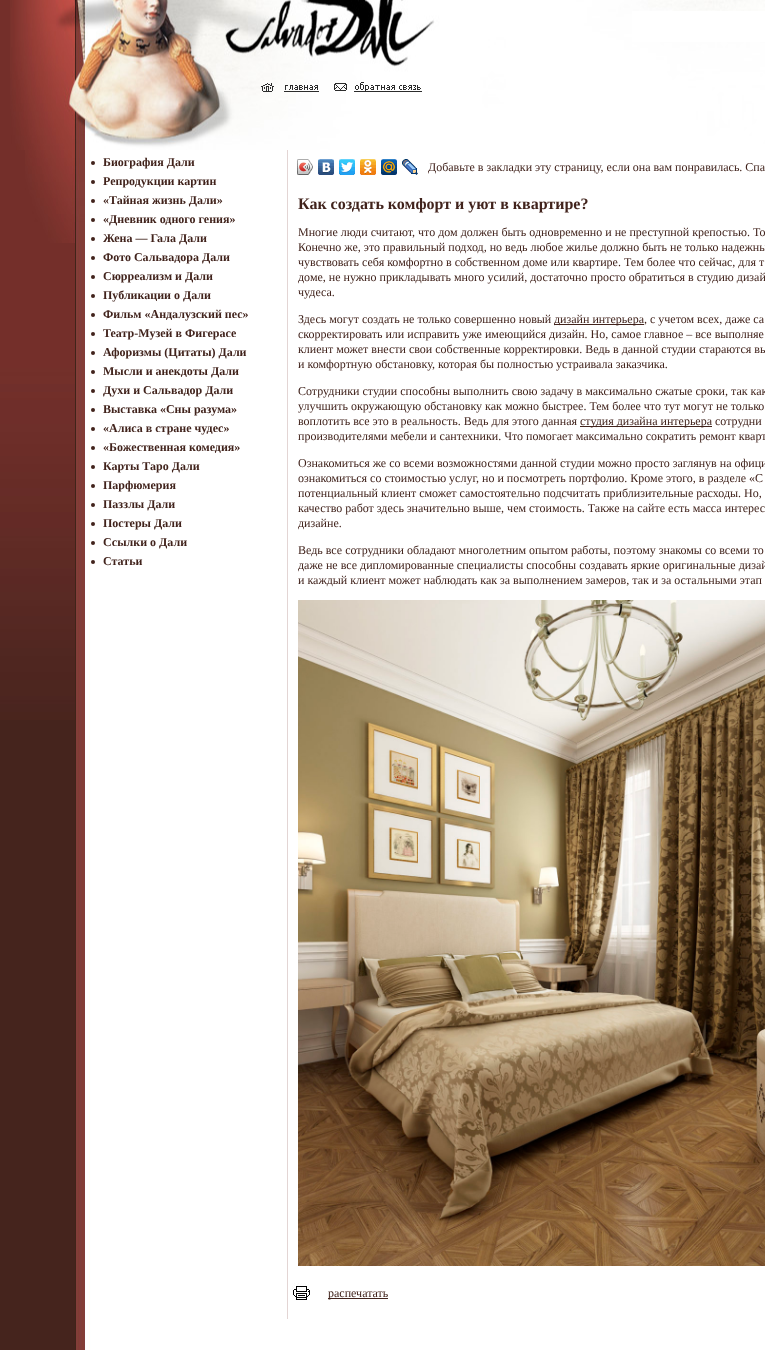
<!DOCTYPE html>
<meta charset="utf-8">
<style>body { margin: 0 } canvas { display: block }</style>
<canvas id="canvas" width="765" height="1350"></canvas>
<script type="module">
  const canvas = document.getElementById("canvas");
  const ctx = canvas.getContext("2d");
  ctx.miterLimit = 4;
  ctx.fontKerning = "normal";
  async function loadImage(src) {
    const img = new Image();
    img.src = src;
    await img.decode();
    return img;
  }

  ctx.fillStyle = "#45241d";
  ctx.fillRect(0, 0, 765, 1350);
  ctx.drawImage(await loadImage("img1.png"), 0, 0, 75, 720);
  ctx.drawImage(await loadImage("img2.png"), 75, 150, 690, 1200);
  ctx.drawImage(await loadImage("img3.png"), 10, 0, 755, 150);
  ctx.fillStyle = "#ffffff";
  ctx.fillRect(632, 11, 133, 31);
  ctx.drawImage(await loadImage("img4.png"), 261, 82, 161, 10);
  ctx.drawImage(await loadImage("img5.png"), 25, 150, 60, 93);
  ctx.fillStyle = "#41231c";
  ctx.beginPath();
  ctx.arc(93, 163, 2, 0, Math.PI * 2);
  ctx.fill();
  ctx.font = "bold 12px Liberation Serif";
  ctx.fillText("Биография Дали", 103, 166);
  ctx.beginPath();
  ctx.arc(93, 182, 2, 0, Math.PI * 2);
  ctx.fill();
  ctx.fillText("Репродукции картин", 103, 185);
  ctx.beginPath();
  ctx.arc(93, 201, 2, 0, Math.PI * 2);
  ctx.fill();
  ctx.fillText("«Тайная жизнь Дали»", 103, 204);
  ctx.beginPath();
  ctx.arc(93, 220, 2, 0, Math.PI * 2);
  ctx.fill();
  ctx.fillText("«Дневник одного гения»", 103, 223);
  ctx.beginPath();
  ctx.arc(93, 239, 2, 0, Math.PI * 2);
  ctx.fill();
  ctx.fillText("Жена — Гала Дали", 103, 242);
  ctx.beginPath();
  ctx.arc(93, 258, 2, 0, Math.PI * 2);
  ctx.fill();
  ctx.fillText("Фото Сальвадора Дали", 103, 261);
  ctx.beginPath();
  ctx.arc(93, 277, 2, 0, Math.PI * 2);
  ctx.fill();
  ctx.fillText("Cюрреализм и Дали", 103, 280);
  ctx.beginPath();
  ctx.arc(93, 296, 2, 0, Math.PI * 2);
  ctx.fill();
  ctx.fillText("Публикации о Дали", 103, 299);
  ctx.beginPath();
  ctx.arc(93, 315, 2, 0, Math.PI * 2);
  ctx.fill();
  ctx.fillText("Фильм «Андалузский пес»", 103, 318);
  ctx.beginPath();
  ctx.arc(93, 334, 2, 0, Math.PI * 2);
  ctx.fill();
  ctx.fillText("Театр-Музей в Фигерасе", 103, 337);
  ctx.beginPath();
  ctx.arc(93, 353, 2, 0, Math.PI * 2);
  ctx.fill();
  ctx.fillText("Афоризмы (Цитаты) Дали", 103, 356);
  ctx.beginPath();
  ctx.arc(93, 372, 2, 0, Math.PI * 2);
  ctx.fill();
  ctx.fillText("Мысли и анекдоты Дали", 103, 375);
  ctx.beginPath();
  ctx.arc(93, 391, 2, 0, Math.PI * 2);
  ctx.fill();
  ctx.fillText("Духи и Сальвадор Дали", 103, 394);
  ctx.beginPath();
  ctx.arc(93, 410, 2, 0, Math.PI * 2);
  ctx.fill();
  ctx.fillText("Выставка «Сны разума»", 103, 413);
  ctx.beginPath();
  ctx.arc(93, 429, 2, 0, Math.PI * 2);
  ctx.fill();
  ctx.fillText("«Алиса в стране чудес»", 103, 432);
  ctx.beginPath();
  ctx.arc(93, 448, 2, 0, Math.PI * 2);
  ctx.fill();
  ctx.fillText("«Божественная комедия»", 103, 451);
  ctx.beginPath();
  ctx.arc(93, 467, 2, 0, Math.PI * 2);
  ctx.fill();
  ctx.fillText("Карты Таро Дали", 103, 470);
  ctx.beginPath();
  ctx.arc(93, 486, 2, 0, Math.PI * 2);
  ctx.fill();
  ctx.fillText("Парфюмерия", 103, 489);
  ctx.beginPath();
  ctx.arc(93, 505, 2, 0, Math.PI * 2);
  ctx.fill();
  ctx.fillText("Паззлы Дали", 103, 508);
  ctx.beginPath();
  ctx.arc(93, 524, 2, 0, Math.PI * 2);
  ctx.fill();
  ctx.fillText("Постеры Дали", 103, 527);
  ctx.beginPath();
  ctx.arc(93, 543, 2, 0, Math.PI * 2);
  ctx.fill();
  ctx.fillText("Ссылки о Дали", 103, 546);
  ctx.beginPath();
  ctx.arc(93, 562, 2, 0, Math.PI * 2);
  ctx.fill();
  ctx.fillText("Статьи", 103, 565);
  ctx.fillStyle = "#e3d5d4";
  ctx.fillRect(287, 150, 1, 1169);
  ctx.drawImage(await loadImage("img6.png"), 297, 159, 16, 16);
  ctx.drawImage(await loadImage("img7.png"), 297, 159, 16, 16);
  ctx.drawImage(await loadImage("img8.png"), 318, 159, 16, 16);
  ctx.drawImage(await loadImage("img9.png"), 339, 159, 16, 16);
  ctx.drawImage(await loadImage("img10.png"), 360, 159, 16, 16);
  ctx.drawImage(await loadImage("img11.png"), 381, 159, 16, 16);
  ctx.drawImage(await loadImage("img12.png"), 402, 159, 16, 16);
  ctx.font = "12px Liberation Serif";
  ctx.fillStyle = "#41231c";
  ctx.fillText("Добавьте в закладки эту страницу, если она вам понравилась. Спа", 428, 171);
  ctx.font = "bold 16px Liberation Serif";
  ctx.fillText("Как создать комфорт и уют в квартире?", 298, 209);
  ctx.font = "12px Liberation Serif";
  ctx.fillText("Многие люди считают, что дом должен быть одновременно и не преступной крепостью. То", 298, 236);
  ctx.fillText("Конечно же, это правильный подход, но ведь любое жилье должно быть не только надежны", 298, 251);
  ctx.fillText("чувствовать себя комфортно в собственном доме или квартире. Тем более что сейчас, для т", 298, 266);
  ctx.fillText("доме, не нужно прикладывать много усилий, достаточно просто обратиться в студию дизай", 298, 281);
  ctx.fillText("чудеса.", 298, 296);
  ctx.fillText("Здесь могут создать не только совершенно новый", 298, 323);
  ctx.fillRect(554, 324, 90, 1);
  ctx.fillText("дизайн интерьера, с учетом всех, даже са", 554, 323);
  ctx.fillText("скорректировать или исправить уже имеющийся дизайн. Но, самое главное – все выполняе", 298, 338);
  ctx.fillText("клиент может внести свои собственные корректировки. Ведь в данной студии стараются вы", 298, 353);
  ctx.fillText("и комфортную обстановку, которая бы полностью устраивала заказчика.", 298, 368);
  ctx.fillText("Сотрудники студии способны выполнить свою задачу в максимально сжатые сроки, так как", 298, 395);
  ctx.fillText("улучшить окружающую обстановку как можно быстрее. Тем более что тут могут не только", 298, 410);
  ctx.fillText("воплотить все это в реальность. Ведь для этого данная", 298, 425);
  ctx.fillRect(580, 426, 132, 1);
  ctx.fillText("студия дизайна интерьера сотрудни", 580, 425);
  ctx.fillText("производителями мебели и сантехники. Что помогает максимально сократить ремонт кварт", 298, 440);
  ctx.fillText("Ознакомиться же со всеми возможностями данной студии можно просто заглянув на офици", 298, 467);
  ctx.fillText("ознакомиться со стоимостью услуг, но и посмотреть портфолио. Кроме этого, в разделе «С", 298, 482);
  ctx.fillText("потенциальный клиент сможет самостоятельно подсчитать приблизительные расходы. Но,", 298, 497);
  ctx.fillText("качество работ здесь значительно выше, чем стоимость. Также на сайте есть масса интерес", 298, 512);
  ctx.fillText("дизайне.", 298, 527);
  ctx.fillText("Ведь все сотрудники обладают многолетним опытом работы, поэтому знакомы со всеми то", 298, 554);
  ctx.fillText("даже не все дипломированные специалисты способны создавать яркие оригинальные дизай", 298, 569);
  ctx.fillText("и каждый клиент может наблюдать как за выполнением замеров, так и за остальными этап", 298, 584);
  ctx.drawImage(await loadImage("img13.png"), 298, 600, 467, 666);
  ctx.drawImage(await loadImage("img14.png"), 292, 1283, 18, 17);
  ctx.fillRect(328, 1298, 60, 1);
  ctx.fillText("распечатать", 328, 1297);
</script>
